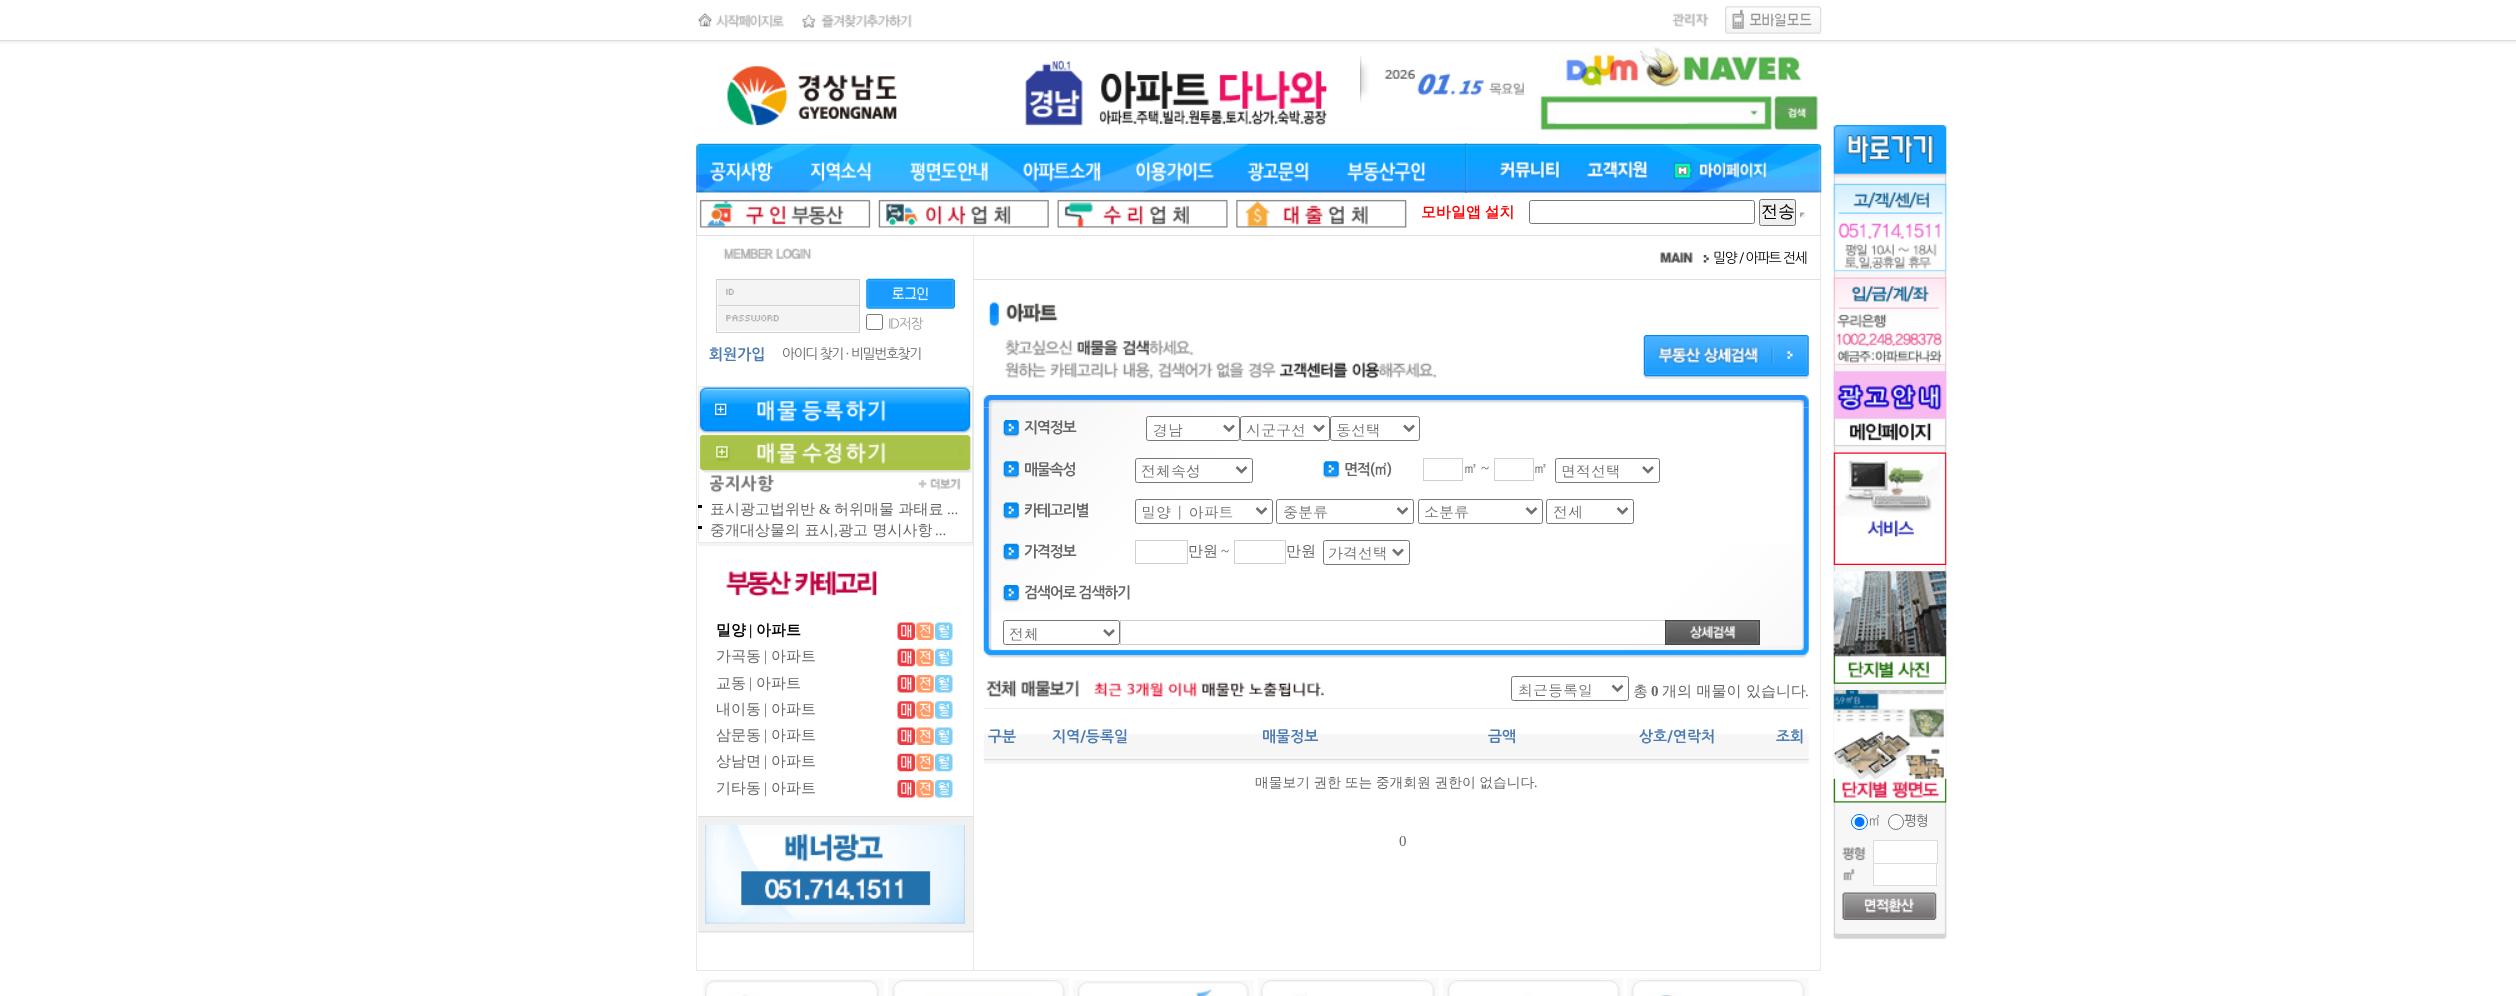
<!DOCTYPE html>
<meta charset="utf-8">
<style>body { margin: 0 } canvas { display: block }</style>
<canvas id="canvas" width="2516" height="996"></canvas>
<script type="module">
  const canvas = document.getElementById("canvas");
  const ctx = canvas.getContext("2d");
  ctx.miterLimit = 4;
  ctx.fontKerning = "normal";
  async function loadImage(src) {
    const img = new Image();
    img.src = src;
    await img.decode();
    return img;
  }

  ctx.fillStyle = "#ffffff";
  ctx.fillRect(0, 0, 2516, 996);
  ctx.drawImage(await loadImage("img1.png"), 698, 13, 86, 15);
  ctx.drawImage(await loadImage("img2.png"), 802, 13, 110, 15);
  ctx.drawImage(await loadImage("img3.png"), 1672, 13, 37, 14);
  ctx.drawImage(await loadImage("img4.png"), 1725, 6, 97, 28);
  ctx.drawImage(await loadImage("img5.png"), 0, 40, 2516, 4);
  ctx.drawImage(await loadImage("img6.png"), 727, 66, 170, 60);
  ctx.drawImage(await loadImage("img7.png"), 1025, 60, 302, 66);
  ctx.drawImage(await loadImage("img8.png"), 1360, 56, 9, 47);
  ctx.drawImage(await loadImage("img9.png"), 1384, 69, 31, 10);
  ctx.drawImage(await loadImage("img10.png"), 1417, 73, 39, 23);
  ctx.drawImage(await loadImage("img11.png"), 1458, 79, 26, 17);
  ctx.drawImage(await loadImage("img12.png"), 1488, 82, 37, 14);
  ctx.drawImage(await loadImage("img14.png"), 696, 143, 1126, 50);
  ctx.drawImage(await loadImage("img13.png"), 1538, 47, 282, 97);
  ctx.drawImage(await loadImage("img15.png"), 709, 162, 65, 20);
  ctx.drawImage(await loadImage("img16.png"), 810, 162, 62, 20);
  ctx.drawImage(await loadImage("img17.png"), 909, 162, 79, 20);
  ctx.drawImage(await loadImage("img18.png"), 1023, 162, 78, 20);
  ctx.drawImage(await loadImage("img19.png"), 1135, 162, 79, 20);
  ctx.drawImage(await loadImage("img20.png"), 1247, 162, 62, 20);
  ctx.drawImage(await loadImage("img21.png"), 1347, 162, 79, 20);
  ctx.drawImage(await loadImage("img22.png"), 1465, 143, 3, 50);
  ctx.drawImage(await loadImage("img23.png"), 1500, 160, 61, 19);
  ctx.drawImage(await loadImage("img24.png"), 1587, 160, 61, 19);
  ctx.drawImage(await loadImage("img25.png"), 1673, 162, 95, 17);
  ctx.fillStyle = "#e1e1e1";
  ctx.fillRect(1820, 193, 1, 43);
  ctx.fillRect(696, 235, 1125, 1);
  ctx.fillRect(696, 193, 1, 43);
  ctx.drawImage(await loadImage("img26.png"), 699, 199, 172, 29);
  ctx.drawImage(await loadImage("img27.png"), 878, 199, 171, 29);
  ctx.drawImage(await loadImage("img28.png"), 1057, 199, 171, 29);
  ctx.drawImage(await loadImage("img29.png"), 1236, 199, 171, 29);
  ctx.wordSpacing = "-1px";
  ctx.font = "bold 15px WenQuanYi Zen Hei";
  ctx.fillStyle = "#ff0000";
  ctx.fillText("모바일앱 설치", 1421, 217);
  ctx.beginPath();
  ctx.roundRect(1529.5, 200.5, 225, 23, 2);
  ctx.strokeStyle = "#767676";
  ctx.stroke();
  ctx.fillStyle = "#efefef";
  ctx.beginPath();
  ctx.roundRect(1759.5, 199.5, 36, 26, 2);
  ctx.fill();
  ctx.stroke();
  ctx.wordSpacing = "0px";
  ctx.font = "500 17px WenQuanYi Zen Hei";
  ctx.fillStyle = "#000000";
  ctx.fillText("전송", 1761, 217);
  ctx.fillStyle = "#9f9f9f";
  ctx.beginPath();
  ctx.moveTo(1800, 212.5);
  ctx.lineTo(1805, 212.5);
  ctx.lineTo(1802.5, 215);
  ctx.closePath();
  ctx.fill();
  ctx.fillStyle = "#eeeeee";
  ctx.beginPath();
  ctx.moveTo(1805, 212.5);
  ctx.lineTo(1805, 217.5);
  ctx.lineTo(1802.5, 215);
  ctx.closePath();
  ctx.fill();
  ctx.beginPath();
  ctx.moveTo(1805, 217.5);
  ctx.lineTo(1800, 217.5);
  ctx.lineTo(1802.5, 215);
  ctx.closePath();
  ctx.fill();
  ctx.fillStyle = "#9f9f9f";
  ctx.beginPath();
  ctx.moveTo(1800, 217.5);
  ctx.lineTo(1800, 212.5);
  ctx.lineTo(1802.5, 215);
  ctx.closePath();
  ctx.fill();
  ctx.fillStyle = "#e8e8e8";
  ctx.fillRect(1820, 236, 1, 735);
  ctx.fillRect(696, 970, 1125, 1);
  ctx.fillRect(696, 236, 1, 735);
  ctx.drawImage(await loadImage("img30.png"), 723, 247, 89, 12);
  ctx.strokeStyle = "#d0d0d0";
  ctx.strokeRect(716.5, 279.5, 143, 53);
  ctx.fillStyle = "#f4f4f4";
  ctx.fillRect(718, 280, 141, 25);
  ctx.drawImage(await loadImage("img31.png"), 726, 288, 8, 7);
  ctx.fillStyle = "#d0d0d0";
  ctx.fillRect(718, 305, 141, 1);
  ctx.fillStyle = "#f4f4f4";
  ctx.fillRect(718, 306, 141, 25);
  ctx.drawImage(await loadImage("img32.png"), 726, 315, 53, 7);
  ctx.drawImage(await loadImage("img33.png"), 866, 278, 89, 31);
  ctx.beginPath();
  ctx.roundRect(866.5, 314.5, 16, 15, 2);
  ctx.strokeStyle = "#767676";
  ctx.stroke();
  ctx.letterSpacing = "-1.25px";
  ctx.font = "13.75px NanumGothic";
  ctx.fillStyle = "#9f9f9f";
  ctx.fillText("ID저장", 888, 328);
  ctx.letterSpacing = "0px";
  ctx.font = "bold 15px NanumGothic";
  ctx.fillStyle = "#4d7cb2";
  ctx.fillText("회원가입", 709, 359);
  ctx.letterSpacing = "-1.25px";
  ctx.font = "13.75px NanumGothic";
  ctx.fillStyle = "#666666";
  ctx.fillText("아이디 찾기 · 비밀번호찾기", 782, 358);
  ctx.strokeStyle = "#e8e8e8";
  ctx.strokeRect(698.5, 386.5, 274, 156);
  ctx.drawImage(await loadImage("img34.png"), 698, 387, 274, 47);
  ctx.drawImage(await loadImage("img35.png"), 698, 433, 274, 41);
  ctx.drawImage(await loadImage("img36.png"), 698, 474, 263, 25);
  ctx.fillStyle = "#090909";
  ctx.fillRect(698, 505, 4, 3);
  ctx.letterSpacing = "0px";
  ctx.font = "500 15px WenQuanYi Zen Hei";
  ctx.fillStyle = "#666666";
  ctx.fillText("표시광고법위반", 710, 514);
  ctx.font = "15px Liberation Serif";
  ctx.fillText("&", 819, 514);
  ctx.font = "500 15px WenQuanYi Zen Hei";
  ctx.fillText("허위매물 과태료", 834, 514);
  ctx.font = "15px Liberation Serif";
  ctx.fillText("...", 947, 514);
  ctx.fillStyle = "#090909";
  ctx.fillRect(698, 526, 4, 3);
  ctx.font = "500 15px WenQuanYi Zen Hei";
  ctx.fillStyle = "#666666";
  ctx.fillText("중개대상물의 표시", 710, 535);
  ctx.font = "15px Liberation Serif";
  ctx.fillText(",", 834, 535);
  ctx.font = "500 15px WenQuanYi Zen Hei";
  ctx.fillText("광고 명시사항", 838, 535);
  ctx.font = "15px Liberation Serif";
  ctx.fillText("...", 935, 535);
  ctx.fillStyle = "#f4f4f4";
  ctx.fillRect(698, 543, 275, 3);
  ctx.drawImage(await loadImage("img37.png"), 726, 571, 151, 26);
  ctx.font = "bold 15px WenQuanYi Zen Hei";
  ctx.fillStyle = "#000000";
  ctx.fillText("밀양", 716, 635);
  ctx.font = "bold 15px Liberation Serif";
  ctx.fillText("|", 749, 635);
  ctx.font = "bold 15px WenQuanYi Zen Hei";
  ctx.fillText("아파트", 756, 635);
  ctx.drawImage(await loadImage("img38.png"), 897, 622, 18, 18);
  ctx.drawImage(await loadImage("img39.png"), 916, 622, 18, 18);
  ctx.drawImage(await loadImage("img40.png"), 935, 622, 18, 18);
  ctx.font = "500 15px WenQuanYi Zen Hei";
  ctx.fillStyle = "#666666";
  ctx.fillText("가곡동", 716, 661);
  ctx.font = "15px Liberation Serif";
  ctx.fillText("|", 764, 661);
  ctx.font = "500 15px WenQuanYi Zen Hei";
  ctx.fillText("아파트", 771, 661);
  ctx.drawImage(await loadImage("img41.png"), 897, 648, 18, 19);
  ctx.drawImage(await loadImage("img42.png"), 916, 648, 18, 19);
  ctx.drawImage(await loadImage("img43.png"), 935, 648, 18, 19);
  ctx.fillText("교동", 716, 688);
  ctx.font = "15px Liberation Serif";
  ctx.fillText("|", 749, 688);
  ctx.font = "500 15px WenQuanYi Zen Hei";
  ctx.fillText("아파트", 756, 688);
  ctx.drawImage(await loadImage("img44.png"), 897, 675, 18, 18);
  ctx.drawImage(await loadImage("img45.png"), 916, 675, 18, 18);
  ctx.drawImage(await loadImage("img46.png"), 935, 675, 18, 18);
  ctx.fillText("내이동", 716, 714);
  ctx.font = "15px Liberation Serif";
  ctx.fillText("|", 764, 714);
  ctx.font = "500 15px WenQuanYi Zen Hei";
  ctx.fillText("아파트", 771, 714);
  ctx.drawImage(await loadImage("img47.png"), 897, 701, 18, 18);
  ctx.drawImage(await loadImage("img48.png"), 916, 701, 18, 18);
  ctx.drawImage(await loadImage("img49.png"), 935, 701, 18, 18);
  ctx.fillText("삼문동", 716, 740);
  ctx.font = "15px Liberation Serif";
  ctx.fillText("|", 764, 740);
  ctx.font = "500 15px WenQuanYi Zen Hei";
  ctx.fillText("아파트", 771, 740);
  ctx.drawImage(await loadImage("img38.png"), 897, 727, 18, 18);
  ctx.drawImage(await loadImage("img39.png"), 916, 727, 18, 18);
  ctx.drawImage(await loadImage("img40.png"), 935, 727, 18, 18);
  ctx.fillText("상남면", 716, 766);
  ctx.font = "15px Liberation Serif";
  ctx.fillText("|", 764, 766);
  ctx.font = "500 15px WenQuanYi Zen Hei";
  ctx.fillText("아파트", 771, 766);
  ctx.drawImage(await loadImage("img41.png"), 897, 753, 18, 19);
  ctx.drawImage(await loadImage("img42.png"), 916, 753, 18, 19);
  ctx.drawImage(await loadImage("img43.png"), 935, 753, 18, 19);
  ctx.fillText("기타동", 716, 793);
  ctx.font = "15px Liberation Serif";
  ctx.fillText("|", 764, 793);
  ctx.font = "500 15px WenQuanYi Zen Hei";
  ctx.fillText("아파트", 771, 793);
  ctx.drawImage(await loadImage("img50.png"), 897, 780, 18, 18);
  ctx.drawImage(await loadImage("img51.png"), 916, 780, 18, 18);
  ctx.drawImage(await loadImage("img52.png"), 935, 780, 18, 18);
  ctx.fillStyle = "#f0f0f0";
  ctx.fillRect(698, 817, 275, 116);
  ctx.fillStyle = "#e0e0e0";
  ctx.fillRect(698, 816, 275, 1);
  ctx.fillRect(698, 931, 275, 1);
  ctx.drawImage(await loadImage("img53.png"), 705, 825, 260, 99);
  ctx.fillStyle = "#e8e8e8";
  ctx.fillRect(973, 236, 1, 735);
  ctx.fillStyle = "#e0e0e0";
  ctx.fillRect(974, 279, 846, 1);
  ctx.drawImage(await loadImage("img54.png"), 1660, 252, 33, 11);
  ctx.drawImage(await loadImage("img55.png"), 1703, 255, 6, 8);
  ctx.letterSpacing = "-1.25px";
  ctx.font = "13.75px NanumGothic";
  ctx.fillStyle = "#000000";
  ctx.fillText("밀양 / 아파트 전세", 1713, 262);
  ctx.drawImage(await loadImage("img56.png"), 988, 302, 449, 77);
  ctx.drawImage(await loadImage("img57.png"), 1643, 335, 166, 44);
  ctx.drawImage(await loadImage("img58.png"), 983, 395, 826, 13);
  ctx.drawImage(await loadImage("img59.png"), 983, 407, 826, 238);
  ctx.drawImage(await loadImage("img60.png"), 1002, 420, 18, 18);
  ctx.font = "bold 15px NanumGothic";
  ctx.fillStyle = "#666666";
  ctx.fillText("지역정보", 1024, 432);
  ctx.fillStyle = "#ffffff";
  ctx.beginPath();
  ctx.roundRect(1146.5, 416.5, 93, 24, 2);
  ctx.fill();
  ctx.strokeStyle = "#767676";
  ctx.stroke();
  ctx.beginPath();
  ctx.moveTo(1224, 425.5);
  ctx.lineTo(1229, 430.5);
  ctx.lineTo(1234, 425.5);
  ctx.strokeStyle = "#707070";
  ctx.lineWidth = 2.5;
  ctx.stroke();
  ctx.letterSpacing = "0px";
  ctx.font = "15px Dotum";
  ctx.fillStyle = "#707070";
  ctx.fillText("경남", 1153, 436);
  ctx.beginPath();
  ctx.roundRect(1240.5, 416.5, 89, 24, 2);
  ctx.strokeStyle = "#767676";
  ctx.lineWidth = 1;
  ctx.stroke();
  ctx.beginPath();
  ctx.moveTo(1314, 425.5);
  ctx.lineTo(1319, 430.5);
  ctx.lineTo(1324, 425.5);
  ctx.strokeStyle = "#707070";
  ctx.lineWidth = 2.5;
  ctx.stroke();
  ctx.fillText("시군구선", 1246, 436);
  ctx.beginPath();
  ctx.roundRect(1330.5, 416.5, 89, 24, 2);
  ctx.strokeStyle = "#767676";
  ctx.lineWidth = 1;
  ctx.stroke();
  ctx.beginPath();
  ctx.moveTo(1404, 425.5);
  ctx.lineTo(1409, 430.5);
  ctx.lineTo(1414, 425.5);
  ctx.strokeStyle = "#707070";
  ctx.lineWidth = 2.5;
  ctx.stroke();
  ctx.fillText("동선택", 1336, 436);
  ctx.drawImage(await loadImage("img61.png"), 1002, 461, 18, 18);
  ctx.letterSpacing = "-1.25px";
  ctx.font = "bold 15px NanumGothic";
  ctx.fillStyle = "#666666";
  ctx.fillText("매물속성", 1024, 474);
  ctx.fillStyle = "#ffffff";
  ctx.beginPath();
  ctx.roundRect(1135.5, 458.5, 117, 24, 2);
  ctx.fill();
  ctx.strokeStyle = "#767676";
  ctx.lineWidth = 1;
  ctx.stroke();
  ctx.beginPath();
  ctx.moveTo(1236.5, 467);
  ctx.lineTo(1241.5, 472);
  ctx.lineTo(1246.5, 467);
  ctx.strokeStyle = "#707070";
  ctx.lineWidth = 2.5;
  ctx.stroke();
  ctx.letterSpacing = "0px";
  ctx.font = "15px Dotum";
  ctx.fillStyle = "#707070";
  ctx.fillText("전체속성", 1141, 477);
  ctx.drawImage(await loadImage("img62.png"), 1322, 461, 18, 18);
  ctx.letterSpacing = "-1.25px";
  ctx.font = "bold 15px NanumGothic";
  ctx.fillStyle = "#666666";
  ctx.fillText("면적(㎡)", 1344, 474);
  ctx.strokeStyle = "#d0d0d0";
  ctx.lineWidth = 1;
  ctx.strokeRect(1423.5, 458.5, 39, 22);
  ctx.letterSpacing = "0px";
  ctx.font = "500 15px WenQuanYi Zen Hei";
  ctx.fillText("㎡", 1463, 473);
  ctx.font = "15px Liberation Serif";
  ctx.fillText("~", 1481, 473);
  ctx.strokeRect(1494.5, 458.5, 39, 22);
  ctx.font = "500 15px WenQuanYi Zen Hei";
  ctx.fillText("㎡", 1533, 473);
  ctx.beginPath();
  ctx.roundRect(1555.5, 458.5, 104, 24, 2);
  ctx.strokeStyle = "#767676";
  ctx.stroke();
  ctx.beginPath();
  ctx.moveTo(1643, 467);
  ctx.lineTo(1648, 472);
  ctx.lineTo(1653, 467);
  ctx.strokeStyle = "#707070";
  ctx.lineWidth = 2.5;
  ctx.stroke();
  ctx.font = "15px Dotum";
  ctx.fillStyle = "#707070";
  ctx.fillText("면적선택", 1561, 477);
  ctx.drawImage(await loadImage("img63.png"), 1002, 502, 18, 18);
  ctx.letterSpacing = "-1.25px";
  ctx.font = "bold 15px NanumGothic";
  ctx.fillStyle = "#666666";
  ctx.fillText("카테고리별", 1024, 515);
  ctx.beginPath();
  ctx.roundRect(1135.5, 499.5, 137, 24, 2);
  ctx.strokeStyle = "#767676";
  ctx.lineWidth = 1;
  ctx.stroke();
  ctx.beginPath();
  ctx.moveTo(1256.5, 508);
  ctx.lineTo(1261.5, 513);
  ctx.lineTo(1266.5, 508);
  ctx.strokeStyle = "#707070";
  ctx.lineWidth = 2.5;
  ctx.stroke();
  ctx.letterSpacing = "0px";
  ctx.font = "15px Dotum";
  ctx.fillStyle = "#707070";
  ctx.fillText("밀양 | 아파트", 1141, 518);
  ctx.beginPath();
  ctx.roundRect(1276.5, 499.5, 137, 24, 2);
  ctx.strokeStyle = "#767676";
  ctx.lineWidth = 1;
  ctx.stroke();
  ctx.beginPath();
  ctx.moveTo(1397.5, 508);
  ctx.lineTo(1402.5, 513);
  ctx.lineTo(1407.5, 508);
  ctx.strokeStyle = "#707070";
  ctx.lineWidth = 2.5;
  ctx.stroke();
  ctx.fillText("중분류", 1283, 518);
  ctx.beginPath();
  ctx.roundRect(1418.5, 499.5, 124, 24, 2);
  ctx.strokeStyle = "#767676";
  ctx.lineWidth = 1;
  ctx.stroke();
  ctx.beginPath();
  ctx.moveTo(1526.5, 508);
  ctx.lineTo(1531.5, 513);
  ctx.lineTo(1536.5, 508);
  ctx.strokeStyle = "#707070";
  ctx.lineWidth = 2.5;
  ctx.stroke();
  ctx.fillText("소분류", 1424, 518);
  ctx.beginPath();
  ctx.roundRect(1546.5, 499.5, 87, 24, 2);
  ctx.strokeStyle = "#767676";
  ctx.lineWidth = 1;
  ctx.stroke();
  ctx.beginPath();
  ctx.moveTo(1617.5, 508);
  ctx.lineTo(1622.5, 513);
  ctx.lineTo(1627.5, 508);
  ctx.strokeStyle = "#707070";
  ctx.lineWidth = 2.5;
  ctx.stroke();
  ctx.fillText("전세", 1553, 518);
  ctx.drawImage(await loadImage("img64.png"), 1002, 543, 18, 18);
  ctx.letterSpacing = "-1.25px";
  ctx.font = "bold 15px NanumGothic";
  ctx.fillStyle = "#666666";
  ctx.fillText("가격정보", 1024, 556);
  ctx.strokeStyle = "#d0d0d0";
  ctx.lineWidth = 1;
  ctx.strokeRect(1135.5, 540.5, 52, 23);
  ctx.letterSpacing = "0px";
  ctx.font = "500 15px WenQuanYi Zen Hei";
  ctx.fillText("만원", 1188, 556);
  ctx.font = "15px Liberation Serif";
  ctx.fillText("~", 1221, 556);
  ctx.strokeRect(1234.5, 540.5, 51, 23);
  ctx.font = "500 15px WenQuanYi Zen Hei";
  ctx.fillText("만원", 1286, 556);
  ctx.beginPath();
  ctx.roundRect(1323.5, 540.5, 86, 24, 2);
  ctx.strokeStyle = "#767676";
  ctx.stroke();
  ctx.beginPath();
  ctx.moveTo(1393, 549.5);
  ctx.lineTo(1398, 554.5);
  ctx.lineTo(1403, 549.5);
  ctx.strokeStyle = "#707070";
  ctx.lineWidth = 2.5;
  ctx.stroke();
  ctx.font = "15px Dotum";
  ctx.fillStyle = "#707070";
  ctx.fillText("가격선택", 1328, 559);
  ctx.drawImage(await loadImage("img65.png"), 1002, 585, 18, 18);
  ctx.letterSpacing = "-1.25px";
  ctx.font = "bold 15px NanumGothic";
  ctx.fillStyle = "#666666";
  ctx.fillText("검색어로 검색하기", 1024, 597);
  ctx.beginPath();
  ctx.roundRect(1003.5, 620.5, 116, 24, 2);
  ctx.strokeStyle = "#767676";
  ctx.lineWidth = 1;
  ctx.stroke();
  ctx.beginPath();
  ctx.moveTo(1104, 630);
  ctx.lineTo(1109, 635);
  ctx.lineTo(1114, 630);
  ctx.strokeStyle = "#707070";
  ctx.lineWidth = 2.5;
  ctx.stroke();
  ctx.letterSpacing = "0px";
  ctx.font = "15px Dotum";
  ctx.fillStyle = "#707070";
  ctx.fillText("전체", 1009, 640);
  ctx.strokeStyle = "#d0d0d0";
  ctx.lineWidth = 1;
  ctx.strokeRect(1120.5, 620.5, 547, 24);
  ctx.drawImage(await loadImage("img66.png"), 1665, 620, 95, 25);
  ctx.drawImage(await loadImage("img67.png"), 983, 645, 826, 13);
  ctx.fillStyle = "#e9e9e9";
  ctx.fillRect(984, 708, 825, 1);
  ctx.drawImage(await loadImage("img68.png"), 986, 679, 338, 19);
  ctx.beginPath();
  ctx.roundRect(1511.5, 676.5, 117, 24, 2);
  ctx.strokeStyle = "#767676";
  ctx.stroke();
  ctx.beginPath();
  ctx.moveTo(1612.5, 685.5);
  ctx.lineTo(1617.5, 690.5);
  ctx.lineTo(1622.5, 685.5);
  ctx.strokeStyle = "#707070";
  ctx.lineWidth = 2.5;
  ctx.stroke();
  ctx.fillStyle = "#707070";
  ctx.fillText("최근등록일", 1518, 696);
  ctx.font = "500 15px WenQuanYi Zen Hei";
  ctx.fillStyle = "#666666";
  ctx.fillText("총", 1633, 696);
  ctx.font = "bold 15px Liberation Serif";
  ctx.fillText("0", 1651, 696);
  ctx.font = "500 15px WenQuanYi Zen Hei";
  ctx.fillText("개의 매물이 있습니다", 1662, 696);
  ctx.font = "15px Liberation Serif";
  ctx.fillText(".", 1805, 696);
  ctx.drawImage(await loadImage("img69.png"), 983, 708, 826, 56);
  ctx.font = "bold 15px NanumGothic";
  ctx.fillStyle = "#4d7cb2";
  ctx.fillText("구분", 988, 741);
  ctx.fillText("지역/등록일", 1052, 741);
  ctx.fillText("매물정보", 1262, 741);
  ctx.fillText("금액", 1488, 741);
  ctx.fillText("상호/연락처", 1639, 741);
  ctx.fillText("조회", 1776, 741);
  ctx.wordSpacing = "-0.5px";
  ctx.font = "500 13.75px WenQuanYi Zen Hei";
  ctx.fillStyle = "#666666";
  ctx.fillText("매물보기 권한 또는 중개회원 권한이 없습니다", 1255, 787);
  ctx.wordSpacing = "0px";
  ctx.font = "13.75px Liberation Serif";
  ctx.fillText(".", 1534, 787);
  ctx.font = "15px Liberation Serif";
  ctx.fillText("0", 1399, 846);
  ctx.drawImage(await loadImage("img70.png"), 1833, 125, 114, 814);
  ctx.drawImage(await loadImage("img72.png"), 1833, 173, 114, 5);
  ctx.drawImage(await loadImage("img71.png"), 1833, 125, 114, 49);
  ctx.drawImage(await loadImage("img73.png"), 1833, 183, 114, 89);
  ctx.drawImage(await loadImage("img74.png"), 1833, 277, 114, 88);
  ctx.drawImage(await loadImage("img75.png"), 1833, 371, 114, 76);
  ctx.drawImage(await loadImage("img76.png"), 1833, 452, 114, 113);
  ctx.drawImage(await loadImage("img77.png"), 1833, 571, 114, 113);
  ctx.drawImage(await loadImage("img78.png"), 1833, 690, 114, 113);
  ctx.fillStyle = "#ffffff";
  ctx.beginPath();
  ctx.roundRect(1851.5, 814.5, 16, 15, 7.5);
  ctx.fill();
  ctx.strokeStyle = "#0075ff";
  ctx.lineWidth = 1;
  ctx.stroke();
  ctx.fillStyle = "#0075ff";
  ctx.beginPath();
  ctx.arc(1859.5, 822, 5, 0, Math.PI * 2);
  ctx.fill();
  ctx.font = "13.75px NanumGothic";
  ctx.fillStyle = "#666666";
  ctx.fillText("㎡", 1868, 825);
  ctx.fillStyle = "#ffffff";
  ctx.beginPath();
  ctx.arc(1896, 822, 7.5, 0, Math.PI * 2);
  ctx.fill();
  ctx.strokeStyle = "#767676";
  ctx.stroke();
  ctx.letterSpacing = "-1.25px";
  ctx.fillStyle = "#666666";
  ctx.fillText("평형", 1904, 825);
  ctx.drawImage(await loadImage("img79.png"), 1842, 846, 24, 15);
  ctx.drawImage(await loadImage("img80.png"), 1843, 868, 12, 13);
  ctx.fillStyle = "#ffffff";
  ctx.beginPath();
  ctx.rect(1873.5, 840.5, 64, 23);
  ctx.fill();
  ctx.strokeStyle = "#dbdbdb";
  ctx.stroke();
  ctx.fillRect(1874, 864, 64, 21);
  ctx.fillStyle = "#dbdbdb";
  ctx.fillRect(1936, 864, 1, 22);
  ctx.fillRect(1873, 885, 65, 1);
  ctx.fillRect(1873, 864, 1, 22);
  ctx.drawImage(await loadImage("img81.png"), 1842, 892, 95, 28);
  ctx.drawImage(await loadImage("img82.png"), 1833, 932, 114, 7);
  ctx.drawImage(await loadImage("img83.png"), 703, 979, 181, 17);
  ctx.drawImage(await loadImage("img84.png"), 888, 978, 181, 18);
  ctx.drawImage(await loadImage("img85.png"), 1073, 980, 181, 16);
  ctx.drawImage(await loadImage("img86.png"), 1258, 978, 181, 18);
  ctx.drawImage(await loadImage("img87.png"), 1443, 978, 180, 18);
  ctx.drawImage(await loadImage("img88.png"), 1627, 978, 182, 18);
</script>
